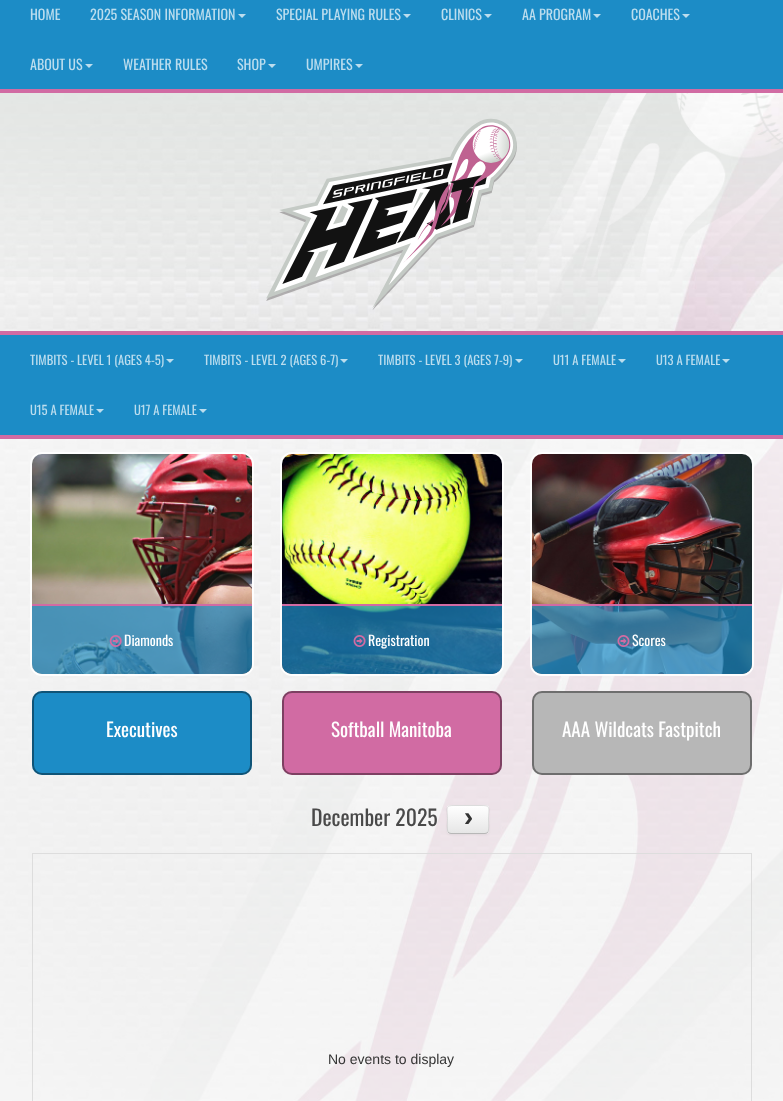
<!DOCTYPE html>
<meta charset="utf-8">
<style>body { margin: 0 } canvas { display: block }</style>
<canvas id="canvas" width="783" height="1101"></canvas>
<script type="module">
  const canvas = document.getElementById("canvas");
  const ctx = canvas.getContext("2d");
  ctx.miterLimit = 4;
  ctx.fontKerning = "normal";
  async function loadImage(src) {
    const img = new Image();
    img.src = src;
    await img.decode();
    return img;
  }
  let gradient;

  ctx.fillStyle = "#ffffff";
  ctx.fillRect(0, 0, 783, 1101);
  ctx.fillStyle = "#1c8cc6";
  ctx.fillRect(0, 0, 783, 89);
  ctx.fillStyle = "#d16ba3";
  ctx.fillRect(0, 89, 783, 4);
  ctx.font = "14px Oswald";
  ctx.fillStyle = "#bbddee";
  ctx.fillText("HOME", 30, 20);
  ctx.fillText("2025 SEASON INFORMATION", 90, 20);
  ctx.beginPath();
  ctx.moveTo(238, 14);
  ctx.lineTo(246, 14);
  ctx.lineTo(242, 18);
  ctx.closePath();
  ctx.fill();
  ctx.fillText("SPECIAL PLAYING RULES", 276, 20);
  ctx.beginPath();
  ctx.moveTo(403, 14);
  ctx.lineTo(411, 14);
  ctx.lineTo(407, 18);
  ctx.closePath();
  ctx.fill();
  ctx.fillText("CLINICS", 441, 20);
  ctx.beginPath();
  ctx.moveTo(484, 14);
  ctx.lineTo(492, 14);
  ctx.lineTo(488, 18);
  ctx.closePath();
  ctx.fill();
  ctx.fillText("AA PROGRAM", 522, 20);
  ctx.beginPath();
  ctx.moveTo(593, 14);
  ctx.lineTo(601, 14);
  ctx.lineTo(597, 18);
  ctx.closePath();
  ctx.fill();
  ctx.fillText("COACHES", 631, 20);
  ctx.beginPath();
  ctx.moveTo(682, 14);
  ctx.lineTo(690, 14);
  ctx.lineTo(686, 18);
  ctx.closePath();
  ctx.fill();
  ctx.fillText("ABOUT US", 30, 70);
  ctx.beginPath();
  ctx.moveTo(85, 64);
  ctx.lineTo(93, 64);
  ctx.lineTo(89, 68);
  ctx.closePath();
  ctx.fill();
  ctx.fillText("WEATHER RULES", 123, 70);
  ctx.fillText("SHOP", 237, 70);
  ctx.beginPath();
  ctx.moveTo(268, 64);
  ctx.lineTo(276, 64);
  ctx.lineTo(272, 68);
  ctx.closePath();
  ctx.fill();
  ctx.fillText("UMPIRES", 306, 70);
  ctx.beginPath();
  ctx.moveTo(355, 64);
  ctx.lineTo(363, 64);
  ctx.lineTo(359, 68);
  ctx.closePath();
  ctx.fill();
  ctx.drawImage(await loadImage("img1.png"), 0, 93, 783, 1008);
  ctx.drawImage(await loadImage("img2.png"), 0, 93, 783, 184);
  ctx.drawImage(await loadImage("img3.png"), 266, 118, 251, 192);
  ctx.fillStyle = "#d16ba3";
  ctx.fillRect(0, 331, 783, 4);
  ctx.fillStyle = "#1c8cc6";
  ctx.fillRect(0, 335, 783, 100);
  ctx.font = "12.6px Oswald";
  ctx.fillStyle = "#bbddee";
  ctx.fillText("TIMBITS - LEVEL 1 (AGES 4-5)", 30, 365);
  ctx.beginPath();
  ctx.moveTo(166, 359);
  ctx.lineTo(174, 359);
  ctx.lineTo(170, 363);
  ctx.closePath();
  ctx.fill();
  ctx.fillText("TIMBITS - LEVEL 2 (AGES 6-7)", 204, 365);
  ctx.beginPath();
  ctx.moveTo(340, 359);
  ctx.lineTo(348, 359);
  ctx.lineTo(344, 363);
  ctx.closePath();
  ctx.fill();
  ctx.fillText("TIMBITS - LEVEL 3 (AGES 7-9)", 378, 365);
  ctx.beginPath();
  ctx.moveTo(515, 359);
  ctx.lineTo(523, 359);
  ctx.lineTo(519, 363);
  ctx.closePath();
  ctx.fill();
  ctx.fillText("U11 A FEMALE", 553, 365);
  ctx.beginPath();
  ctx.moveTo(618, 359);
  ctx.lineTo(626, 359);
  ctx.lineTo(622, 363);
  ctx.closePath();
  ctx.fill();
  ctx.fillText("U13 A FEMALE", 656, 365);
  ctx.beginPath();
  ctx.moveTo(722, 359);
  ctx.lineTo(730, 359);
  ctx.lineTo(726, 363);
  ctx.closePath();
  ctx.fill();
  ctx.fillText("U15 A FEMALE", 30, 415);
  ctx.beginPath();
  ctx.moveTo(96, 409);
  ctx.lineTo(104, 409);
  ctx.lineTo(100, 413);
  ctx.closePath();
  ctx.fill();
  ctx.fillText("U17 A FEMALE", 134, 415);
  ctx.beginPath();
  ctx.moveTo(199, 409);
  ctx.lineTo(207, 409);
  ctx.lineTo(203, 413);
  ctx.closePath();
  ctx.fill();
  ctx.fillStyle = "#d16ba3";
  ctx.fillRect(0, 435, 783, 4);
  ctx.fillStyle = "rgba(255, 255, 255, 0.6)";
  ctx.fillRect(0, 439, 783, 662);
  ctx.beginPath();
  ctx.roundRect(31, 453, 222, 222, 11);
  ctx.strokeStyle = "rgba(255, 255, 255, 0.9)";
  ctx.lineWidth = 2;
  ctx.stroke();
  ctx.drawImage(await loadImage("img4.png"), 32, 454, 220, 220);
  ctx.fillStyle = "rgba(28, 140, 198, 0.7)";
  ctx.beginPath();
  ctx.roundRect(32, 604, 220, 70, [0, 0, 10, 10]);
  ctx.fill();
  ctx.fillStyle = "#d16ba3";
  ctx.fillRect(32, 604, 220, 2);
  ctx.drawImage(await loadImage("img5.png"), 109, 635, 13, 12);
  ctx.font = "14px Oswald";
  ctx.fillStyle = "#ffffff";
  ctx.fillText("Diamonds", 124, 646);
  ctx.beginPath();
  ctx.roundRect(281, 453, 222, 222, 11);
  ctx.stroke();
  ctx.drawImage(await loadImage("img6.png"), 282, 454, 220, 220);
  ctx.fillStyle = "rgba(28, 140, 198, 0.7)";
  ctx.beginPath();
  ctx.roundRect(282, 604, 220, 70, [0, 0, 10, 10]);
  ctx.fill();
  ctx.fillStyle = "#d16ba3";
  ctx.fillRect(282, 604, 220, 2);
  ctx.drawImage(await loadImage("img7.png"), 353, 635, 13, 12);
  ctx.fillStyle = "#ffffff";
  ctx.fillText("Registration", 368, 646);
  ctx.beginPath();
  ctx.roundRect(531, 453, 222, 222, 11);
  ctx.stroke();
  ctx.drawImage(await loadImage("img8.png"), 532, 454, 220, 220);
  ctx.fillStyle = "rgba(28, 140, 198, 0.7)";
  ctx.beginPath();
  ctx.roundRect(532, 604, 220, 70, [0, 0, 10, 10]);
  ctx.fill();
  ctx.fillStyle = "#d16ba3";
  ctx.fillRect(532, 604, 220, 2);
  ctx.drawImage(await loadImage("img9.png"), 617, 635, 13, 12);
  ctx.fillStyle = "#ffffff";
  ctx.fillText("Scores", 632, 646);
  ctx.fillStyle = "#1c8cc6";
  ctx.beginPath();
  ctx.roundRect(32, 691, 220, 84, 10);
  ctx.fill();
  ctx.beginPath();
  ctx.roundRect(33, 692, 218, 82, 9);
  ctx.strokeStyle = "rgba(0, 0, 0, 0.4)";
  ctx.stroke();
  ctx.font = "19px Oswald";
  ctx.fillStyle = "#ffffff";
  ctx.fillText("Executives", 106, 737);
  ctx.fillStyle = "#d16ba3";
  ctx.beginPath();
  ctx.roundRect(282, 691, 220, 84, 10);
  ctx.fill();
  ctx.beginPath();
  ctx.roundRect(283, 692, 218, 82, 9);
  ctx.stroke();
  ctx.fillStyle = "#ffffff";
  ctx.fillText("Softball Manitoba", 331, 737);
  ctx.fillStyle = "#b7b7b7";
  ctx.beginPath();
  ctx.roundRect(532, 691, 220, 84, 10);
  ctx.fill();
  ctx.beginPath();
  ctx.roundRect(533, 692, 218, 82, 9);
  ctx.stroke();
  ctx.fillStyle = "#ffffff";
  ctx.fillText("AAA Wildcats Fastpitch", 562, 737);
  ctx.font = "21.75px Oswald";
  ctx.fillStyle = "#494949";
  ctx.fillText("December 2025", 311, 826);
  ctx.fillStyle = "rgba(0, 0, 0, 0.05)";
  ctx.filter = "blur(1px)";
  ctx.beginPath();
  ctx.roundRect(447, 806, 42, 29, 4);
  ctx.fill();
  ctx.filter = "none";
  ctx.fillStyle = "#f5f5f5";
  ctx.beginPath();
  ctx.roundRect(447, 805, 42, 29, 4);
  ctx.fill();
  ctx.save();
  ctx.beginPath();
  ctx.roundRect(447, 805, 42, 29, 4);
  ctx.clip();
  gradient = ctx.createLinearGradient(468, 806, 468, 833);
  gradient.addColorStop(0, "#ffffff");
  gradient.addColorStop(1, "#e6e6e6");
  ctx.fillStyle = gradient;
  ctx.fillRect(447, 806, 42, 27);
  ctx.restore();
  ctx.beginPath();
  ctx.moveTo(487.5, 832.5);
  ctx.bezierCurveTo(487, 833, 486, 833.5, 485, 833.5);
  ctx.lineTo(451, 833.5);
  ctx.bezierCurveTo(450, 833.5, 449, 833, 448.5, 832.5);
  ctx.strokeStyle = "rgba(0, 0, 0, 0.25)";
  ctx.lineWidth = 1;
  ctx.stroke();
  ctx.beginPath();
  ctx.moveTo(448.5, 832.5);
  ctx.bezierCurveTo(446.5, 830.5, 447.5, 822, 447.5, 819.5);
  ctx.bezierCurveTo(447.5, 807, 444.5, 805.5, 456.5, 805.5);
  ctx.lineTo(479.5, 805.5);
  ctx.bezierCurveTo(491.5, 805.5, 488.5, 807, 488.5, 819.5);
  ctx.bezierCurveTo(488.5, 822, 489.5, 830.5, 487.5, 832.5);
  ctx.strokeStyle = "rgba(0, 0, 0, 0.1)";
  ctx.stroke();
  ctx.font = "bold 28px Liberation Mono";
  ctx.fillStyle = "#333333";
  ctx.fillText("›", 460, 826);
  ctx.strokeStyle = "#dddddd";
  ctx.strokeRect(32.5, 853.5, 719, 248);
  ctx.font = "14px Liberation Sans";
  ctx.fillText("No events to display", 328, 1064);
</script>
